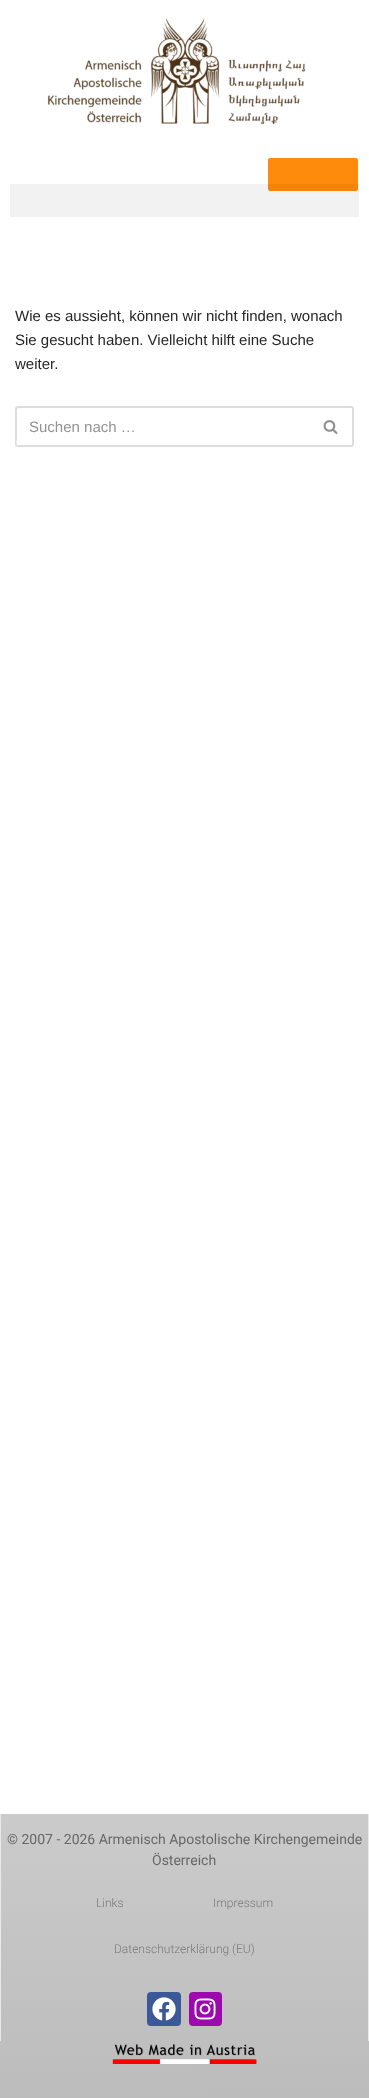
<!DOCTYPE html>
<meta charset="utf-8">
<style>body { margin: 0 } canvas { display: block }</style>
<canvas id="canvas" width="369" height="2098"></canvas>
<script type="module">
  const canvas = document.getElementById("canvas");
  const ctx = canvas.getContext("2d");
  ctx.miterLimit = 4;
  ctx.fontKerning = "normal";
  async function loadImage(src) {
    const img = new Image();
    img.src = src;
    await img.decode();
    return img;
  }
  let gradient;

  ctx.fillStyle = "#ffffff";
  ctx.fillRect(0, 0, 369, 2098);
  ctx.drawImage(await loadImage("img1.png"), 47, 18, 259, 107);
  ctx.fillStyle = "#ff8b0c";
  ctx.beginPath();
  ctx.roundRect(268, 158, 90, 33, 2);
  ctx.fill();
  ctx.fillStyle = "rgba(0, 0, 0, 0.05)";
  ctx.fillRect(10, 184, 349, 33);
  ctx.font = "15px Liberation Sans";
  ctx.fillStyle = "#272626";
  ctx.fillText("Wie es aussieht, können wir nicht finden, wonach", 15, 321);
  ctx.fillText("Sie gesucht haben. Vielleicht hilft eine Suche", 15, 345);
  ctx.fillText("weiter.", 15, 369);
  ctx.fillStyle = "#dddddd";
  ctx.beginPath();
  ctx.moveTo(18, 406);
  ctx.lineTo(309, 406);
  ctx.lineTo(309, 447);
  ctx.lineTo(18, 447);
  ctx.bezierCurveTo(16, 447, 15, 446, 15, 444);
  ctx.lineTo(15, 409);
  ctx.bezierCurveTo(15, 407, 16, 406, 18, 406);
  ctx.closePath();
  ctx.moveTo(18, 408);
  ctx.lineTo(309, 408);
  ctx.lineTo(309, 445);
  ctx.lineTo(17, 445);
  ctx.bezierCurveTo(16, 444, 17, 440, 17, 438);
  ctx.lineTo(17, 409);
  ctx.closePath();
  ctx.fill("evenodd");
  ctx.fillStyle = "#939393";
  ctx.fillText("Suchen nach …", 29, 432);
  ctx.fillStyle = "#dddddd";
  ctx.beginPath();
  ctx.moveTo(309, 406);
  ctx.lineTo(351, 406);
  ctx.bezierCurveTo(353, 406, 354, 407, 354, 409);
  ctx.lineTo(354, 444);
  ctx.bezierCurveTo(354, 446, 353, 447, 351, 447);
  ctx.lineTo(309, 447);
  ctx.closePath();
  ctx.moveTo(309, 408);
  ctx.lineTo(351, 408);
  ctx.bezierCurveTo(352, 408, 352, 408, 352, 409);
  ctx.lineTo(352, 444);
  ctx.bezierCurveTo(352, 445, 352, 445, 351, 445);
  ctx.lineTo(309, 445);
  ctx.closePath();
  ctx.fill("evenodd");
  ctx.drawImage(await loadImage("img2.png"), 323, 420, 15, 14);
  gradient = ctx.createLinearGradient(184, 1814, 185, 2098);
  gradient.addColorStop(0, "#cbcbcb");
  gradient.addColorStop(1, "#bcbcbc");
  ctx.fillStyle = gradient;
  ctx.fillRect(0, 1814, 369, 284);
  ctx.fillStyle = "#e9e9e9";
  ctx.fillRect(368, 1814, 1, 227);
  ctx.fillRect(0, 1814, 1, 227);
  ctx.font = "14px Roboto";
  ctx.fillStyle = "#686868";
  ctx.fillText("© 2007 - 2026 Armenisch Apostolische Kirchengemeinde", 7, 1844);
  ctx.fillText("Österreich", 152, 1865);
  ctx.font = "300 12px Roboto";
  ctx.fillStyle = "#7a7a7a";
  ctx.fillText("Links", 96, 1907);
  ctx.fillText("Impressum", 213, 1907);
  ctx.fillText("Datenschutzerklärung (EU)", 114, 1953);
  ctx.fillStyle = "#3b5998";
  ctx.beginPath();
  ctx.roundRect(147, 1992, 34, 34, 4);
  ctx.fill();
  ctx.drawImage(await loadImage("img3.png"), 152, 1997, 24, 24);
  ctx.fillStyle = "#9c0aae";
  ctx.beginPath();
  ctx.roundRect(189, 1992, 33, 34, 4);
  ctx.fill();
  ctx.drawImage(await loadImage("img4.png"), 194, 1998, 22, 22);
  ctx.drawImage(await loadImage("img5.png"), 112, 2044, 145, 20);
</script>
